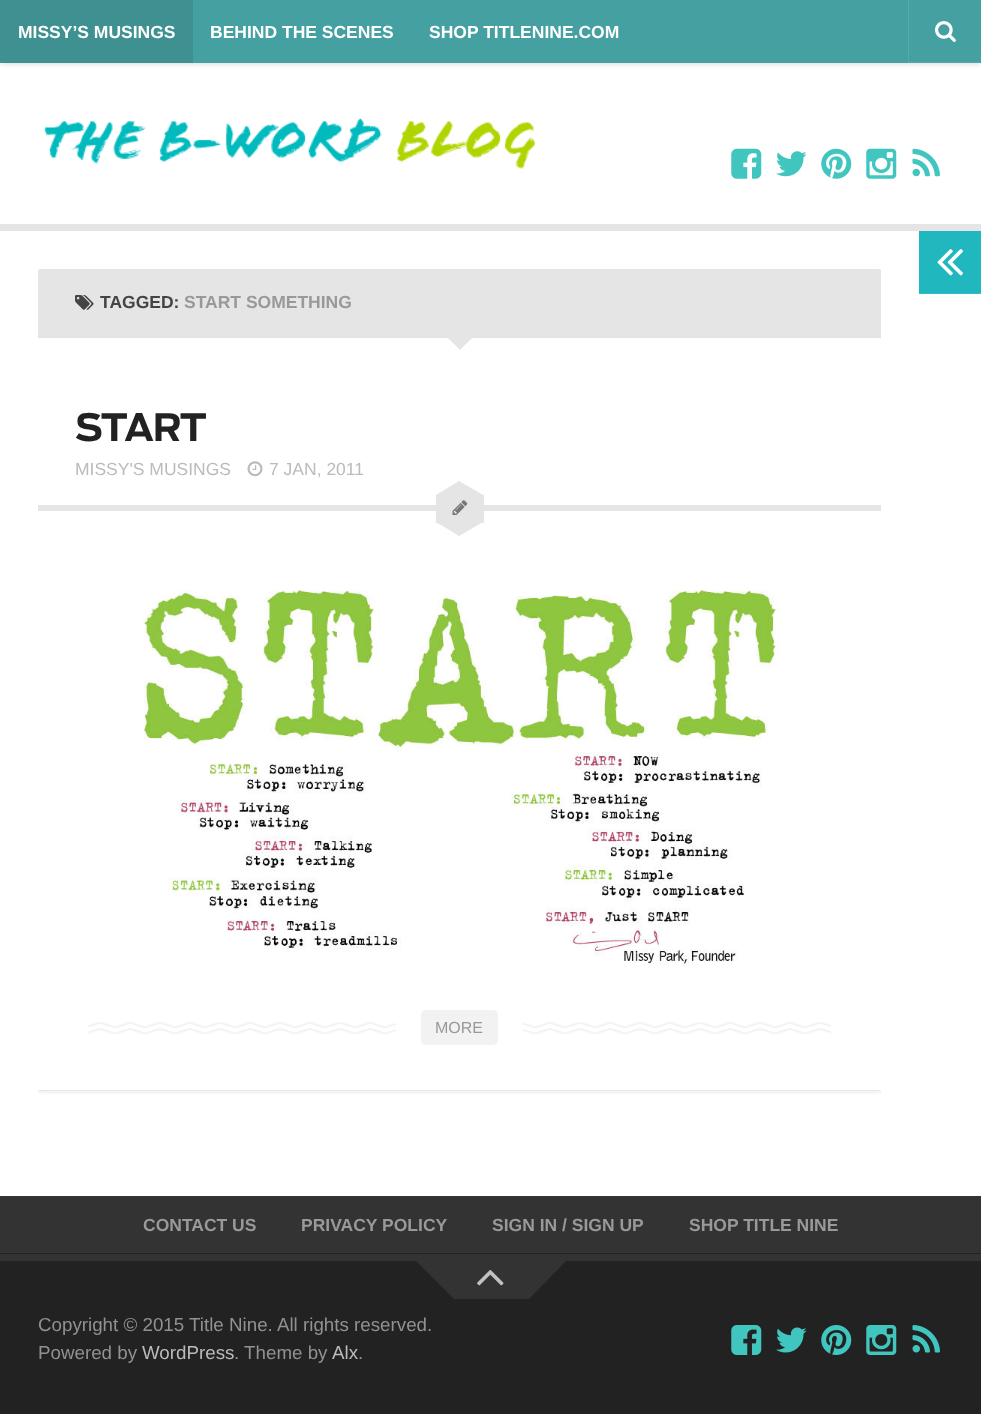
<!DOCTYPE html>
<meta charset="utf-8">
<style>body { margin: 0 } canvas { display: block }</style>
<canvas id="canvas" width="981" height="1414"></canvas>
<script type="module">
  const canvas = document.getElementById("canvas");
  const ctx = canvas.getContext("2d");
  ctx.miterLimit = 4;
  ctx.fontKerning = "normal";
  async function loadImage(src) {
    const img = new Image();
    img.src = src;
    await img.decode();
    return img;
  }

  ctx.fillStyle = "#ffffff";
  ctx.fillRect(0, 0, 981, 1414);
  ctx.fillStyle = "#e5e5e5";
  ctx.fillRect(0, 224, 981, 7);
  ctx.fillStyle = "rgba(0, 0, 0, 0.2)";
  ctx.filter = "blur(3px)";
  ctx.beginPath();
  ctx.rect(0, 0, 981, 63);
  ctx.fill();
  ctx.filter = "none";
  ctx.fillStyle = "#45a0a1";
  ctx.fillRect(193, 0, 788, 63);
  ctx.fillStyle = "#3e9091";
  ctx.fillRect(0, 0, 193, 63);
  ctx.font = "bold 17.5px Liberation Sans";
  ctx.fillStyle = "#ffffff";
  ctx.fillText("MISSY’S MUSINGS", 18, 38);
  ctx.fillText("BEHIND THE SCENES", 210, 38);
  ctx.fillText("SHOP TITLENINE.COM", 429, 38);
  ctx.fillStyle = "#58aaaa";
  ctx.beginPath();
  ctx.moveTo(908, 0);
  ctx.lineTo(908, 63);
  ctx.lineTo(980, 63);
  ctx.lineTo(980, 62);
  ctx.lineTo(909, 62);
  ctx.lineTo(909, 0);
  ctx.closePath();
  ctx.fill();
  ctx.drawImage(await loadImage("img1.png"), 935, 21, 21, 21);
  ctx.drawImage(await loadImage("img2.png"), 44, 118, 492, 51);
  ctx.drawImage(await loadImage("img3.png"), 731, 148, 31, 31);
  ctx.drawImage(await loadImage("img4.png"), 776, 151, 31, 26);
  ctx.drawImage(await loadImage("img5.png"), 821, 148, 31, 31);
  ctx.drawImage(await loadImage("img6.png"), 866, 148, 31, 31);
  ctx.drawImage(await loadImage("img7.png"), 912, 148, 28, 29);
  ctx.fillStyle = "#20b7bf";
  ctx.fillRect(919, 231, 62, 62);
  ctx.fillStyle = "#36bec5";
  ctx.fillRect(919, 293, 62, 1);
  ctx.drawImage(await loadImage("img8.png"), 937, 249, 26, 27);
  ctx.fillStyle = "#e5e5e5";
  ctx.beginPath();
  ctx.roundRect(38, 269, 843, 70, 2.5);
  ctx.fill();
  ctx.fillStyle = "#fbfbfb";
  ctx.fillRect(39, 338, 841, 1);
  ctx.drawImage(await loadImage("img9.png"), 75, 295, 19, 15);
  ctx.fillStyle = "#444444";
  ctx.fillText("TAGGED:", 100, 308);
  ctx.fillStyle = "#999999";
  ctx.fillText("START SOMETHING", 184, 308);
  ctx.fillStyle = "#e5e5e5";
  ctx.beginPath();
  ctx.moveTo(447.5, 337.5);
  ctx.lineTo(472.5, 337.5);
  ctx.lineTo(460, 350);
  ctx.closePath();
  ctx.fill();
  ctx.letterSpacing = "-1.25px";
  ctx.font = "bold 37.5px 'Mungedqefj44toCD'";
  ctx.fillStyle = "#222222";
  ctx.fillText("START", 75, 441);
  ctx.letterSpacing = "0px";
  ctx.font = "17.5px Liberation Sans";
  ctx.fillStyle = "#bbbbbb";
  ctx.fillText("MISSY'S MUSINGS", 75, 475);
  ctx.drawImage(await loadImage("img10.png"), 247, 461, 16, 16);
  ctx.fillText("7 JAN, 2011", 269, 475);
  ctx.save();
  ctx.beginPath();
  ctx.rect(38, 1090, 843, 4);
  ctx.clip();
  ctx.fillStyle = "rgba(0, 0, 0, 0.05)";
  ctx.filter = "blur(2px)";
  ctx.beginPath();
  ctx.rect(38, 509, 843, 585);
  ctx.fill();
  ctx.filter = "none";
  ctx.restore();
  ctx.fillStyle = "rgba(0, 0, 0, 0.05)";
  ctx.fillRect(38, 1090, 843, 1);
  ctx.fillStyle = "#e5e5e5";
  ctx.fillRect(38, 505, 843, 6);
  ctx.fillRect(436, 495, 48, 28);
  ctx.beginPath();
  ctx.moveTo(459, 481);
  ctx.lineTo(483, 522);
  ctx.lineTo(459, 536);
  ctx.lineTo(436, 495);
  ctx.closePath();
  ctx.fill();
  ctx.beginPath();
  ctx.moveTo(436, 522);
  ctx.lineTo(459, 481);
  ctx.lineTo(483, 495);
  ctx.lineTo(459, 536);
  ctx.closePath();
  ctx.fill();
  ctx.beginPath();
  ctx.moveTo(435.5, 522);
  ctx.lineTo(440, 514.5);
  ctx.lineTo(440, 524.5);
  ctx.closePath();
  ctx.fill();
  ctx.drawImage(await loadImage("img11.png"), 452, 500, 16, 15);
  ctx.drawImage(await loadImage("img12.png"), 143, 590, 637, 378);
  ctx.drawImage(await loadImage("img13.png"), 87, 1022, 744, 12);
  ctx.fillStyle = "#ffffff";
  ctx.fillRect(396, 1022, 127, 12);
  ctx.fillStyle = "#f2f2f2";
  ctx.beginPath();
  ctx.roundRect(421, 1010, 77, 35, 5);
  ctx.fill();
  ctx.font = "16px Liberation Sans";
  ctx.fillStyle = "#999999";
  ctx.fillText("MORE", 435, 1033);
  ctx.fillStyle = "#222222";
  ctx.fillRect(0, 1253, 981, 161);
  ctx.fillStyle = "#333333";
  ctx.fillRect(0, 1197, 981, 56);
  ctx.fillStyle = "#363636";
  ctx.fillRect(0, 1196, 981, 1);
  ctx.font = "bold 17.5px Liberation Sans";
  ctx.fillStyle = "#999999";
  ctx.fillText("CONTACT US", 143, 1231);
  ctx.fillText("PRIVACY POLICY", 301, 1231);
  ctx.fillText("SIGN IN / SIGN UP", 492, 1231);
  ctx.fillText("SHOP TITLE NINE", 689, 1231);
  ctx.fillStyle = "#333333";
  ctx.fillRect(0, 1254, 981, 7);
  ctx.fillRect(454, 1261, 75, 38);
  ctx.beginPath();
  ctx.moveTo(416, 1261);
  ctx.lineTo(454, 1261);
  ctx.lineTo(454, 1299);
  ctx.closePath();
  ctx.fill();
  ctx.drawImage(await loadImage("img14.png"), 477, 1270, 27, 16);
  ctx.beginPath();
  ctx.moveTo(529, 1261);
  ctx.lineTo(566, 1261);
  ctx.lineTo(529, 1299);
  ctx.closePath();
  ctx.fill();
  ctx.font = "18.75px Liberation Sans";
  ctx.fillStyle = "#919191";
  ctx.fillText("Copyright © 2015 Title Nine. All rights reserved.", 38, 1331);
  ctx.fillText("Powered by", 38, 1359);
  ctx.fillStyle = "#bbbbbb";
  ctx.fillText("WordPress", 142, 1359);
  ctx.fillStyle = "#919191";
  ctx.fillText(". Theme by", 234, 1359);
  ctx.fillStyle = "#bbbbbb";
  ctx.fillText("Alx", 332, 1359);
  ctx.fillStyle = "#919191";
  ctx.fillText(".", 358, 1359);
  ctx.drawImage(await loadImage("img15.png"), 731, 1325, 31, 30);
  ctx.drawImage(await loadImage("img16.png"), 776, 1327, 31, 26);
  ctx.drawImage(await loadImage("img17.png"), 821, 1325, 31, 30);
  ctx.drawImage(await loadImage("img18.png"), 866, 1325, 31, 30);
  ctx.drawImage(await loadImage("img19.png"), 912, 1325, 28, 28);
</script>
